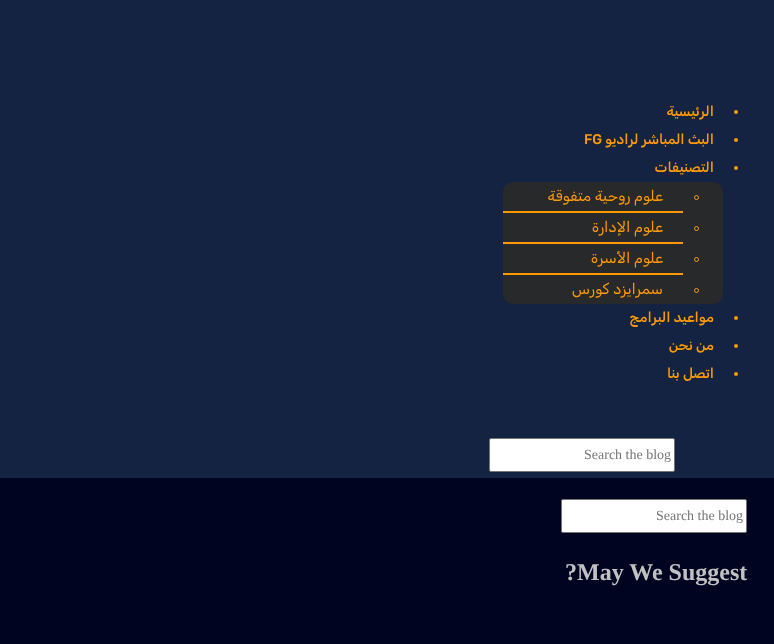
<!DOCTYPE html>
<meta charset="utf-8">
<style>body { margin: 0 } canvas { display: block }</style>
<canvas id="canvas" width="774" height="644"></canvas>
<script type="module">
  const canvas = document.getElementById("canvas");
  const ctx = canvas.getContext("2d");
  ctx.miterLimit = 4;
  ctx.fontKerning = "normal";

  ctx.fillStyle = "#000421";
  ctx.fillRect(0, 0, 774, 644);
  ctx.fillStyle = "#142342";
  ctx.fillRect(0, 0, 774, 478);
  ctx.fillStyle = "#ff9900";
  ctx.beginPath();
  ctx.arc(736, 112, 2, 0, Math.PI * 2);
  ctx.fill();
  ctx.direction = "rtl";
  ctx.font = "500 14px Rubik";
  ctx.fillText("الرئيسية", 714, 116);
  ctx.beginPath();
  ctx.arc(736, 140, 2, 0, Math.PI * 2);
  ctx.fill();
  ctx.fillText("البث المباشر لراديو", 714, 144);
  ctx.direction = "ltr";
  ctx.fillText("FG", 584, 144);
  ctx.beginPath();
  ctx.arc(736, 168, 2, 0, Math.PI * 2);
  ctx.fill();
  ctx.direction = "rtl";
  ctx.fillText("التصنيفات", 714, 172);
  ctx.fillStyle = "#28292b";
  ctx.beginPath();
  ctx.roundRect(503, 182, 220, 122, 10);
  ctx.fill();
  ctx.fillStyle = "#ff9900";
  ctx.fillRect(503, 211, 180, 2);
  ctx.beginPath();
  ctx.arc(696.5, 197.5, 2, 0, Math.PI * 2);
  ctx.strokeStyle = "#ff9900";
  ctx.stroke();
  ctx.font = "15px Rubik";
  ctx.fillText("علوم روحية متفوقة", 663, 201);
  ctx.fillRect(503, 242, 180, 2);
  ctx.beginPath();
  ctx.arc(696.5, 228.5, 2, 0, Math.PI * 2);
  ctx.stroke();
  ctx.fillText("علوم الإدارة", 663, 232);
  ctx.fillRect(503, 273, 180, 2);
  ctx.beginPath();
  ctx.arc(696.5, 259.5, 2, 0, Math.PI * 2);
  ctx.stroke();
  ctx.fillText("علوم الأسرة", 663, 263);
  ctx.beginPath();
  ctx.arc(696.5, 290.5, 2, 0, Math.PI * 2);
  ctx.stroke();
  ctx.fillText("سمرايزد كورس", 663, 294);
  ctx.beginPath();
  ctx.arc(736, 318, 2, 0, Math.PI * 2);
  ctx.fill();
  ctx.font = "500 14px Rubik";
  ctx.fillText("مواعيد البرامج", 714, 322);
  ctx.beginPath();
  ctx.arc(736, 346, 2, 0, Math.PI * 2);
  ctx.fill();
  ctx.fillText("من نحن", 714, 350);
  ctx.beginPath();
  ctx.arc(736, 374, 2, 0, Math.PI * 2);
  ctx.fill();
  ctx.fillText("اتصل بنا", 714, 378);
  ctx.fillStyle = "#ffffff";
  ctx.beginPath();
  ctx.roundRect(489.5, 438.5, 185, 33, 1.5);
  ctx.fill();
  ctx.strokeStyle = "#767676";
  ctx.stroke();
  ctx.direction = "ltr";
  ctx.font = "14px Liberation Serif";
  ctx.fillStyle = "#757575";
  ctx.fillText("Search the blog", 584, 459);
  ctx.fillStyle = "#ffffff";
  ctx.beginPath();
  ctx.roundRect(561.5, 499.5, 185, 33, 1.5);
  ctx.fill();
  ctx.stroke();
  ctx.fillStyle = "#757575";
  ctx.fillText("Search the blog", 656, 520);
  ctx.font = "bold 24px Liberation Serif";
  ctx.fillStyle = "#c1c1c1";
  ctx.fillText("?May We Suggest", 565, 580);
</script>
